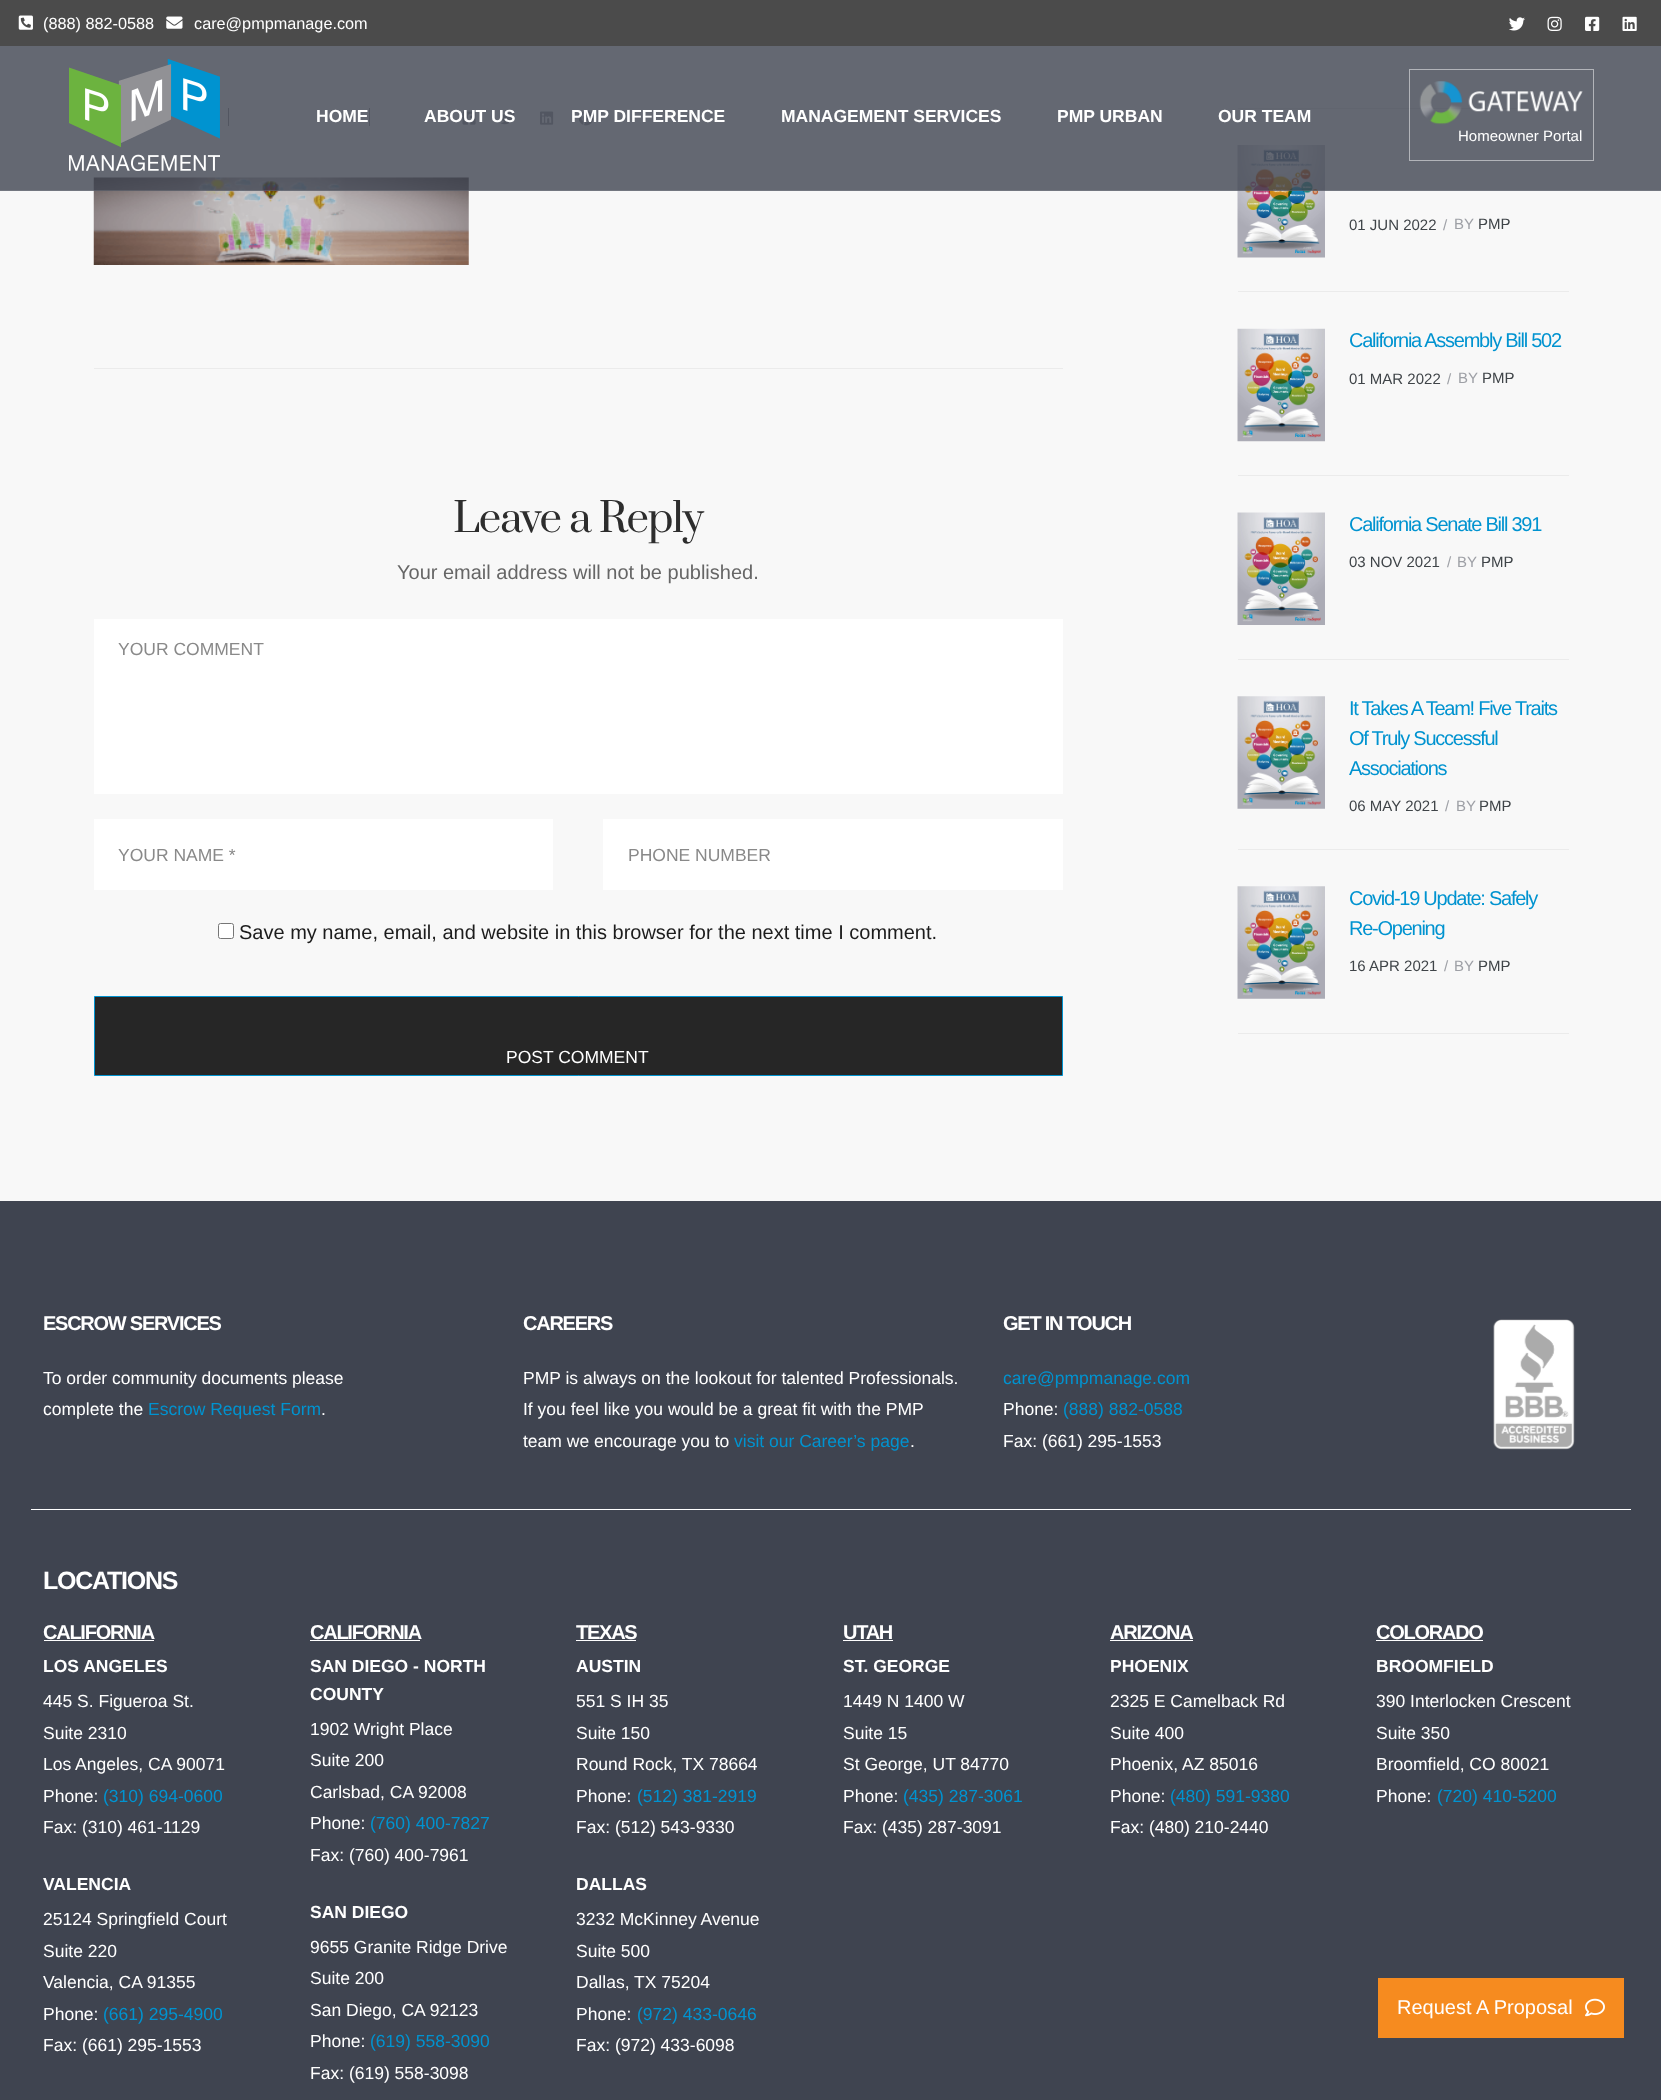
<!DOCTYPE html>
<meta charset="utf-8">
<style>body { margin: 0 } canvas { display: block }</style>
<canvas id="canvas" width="1661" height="2100"></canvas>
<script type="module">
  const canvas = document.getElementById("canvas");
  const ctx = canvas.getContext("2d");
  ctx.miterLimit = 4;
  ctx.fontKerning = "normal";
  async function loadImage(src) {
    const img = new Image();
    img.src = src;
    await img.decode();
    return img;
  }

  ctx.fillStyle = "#f8f8f8";
  ctx.fillRect(0, 0, 1661, 2100);
  ctx.fillStyle = "rgba(31, 31, 31, 0.8)";
  ctx.fillRect(0, 0, 1661, 46);
  ctx.drawImage(await loadImage("img1.png"), 18, 15, 15, 15);
  ctx.font = "16.25px Liberation Sans";
  ctx.fillStyle = "#ffffff";
  ctx.fillText("(888) 882-0588", 43, 29);
  ctx.drawImage(await loadImage("img2.png"), 166, 16, 17, 13);
  ctx.fillText("care@pmpmanage.com", 194, 29);
  ctx.drawImage(await loadImage("img3.png"), 1509, 17, 16, 14);
  ctx.drawImage(await loadImage("img4.png"), 1547, 16, 15, 15);
  ctx.drawImage(await loadImage("img5.png"), 1585, 16, 15, 15);
  ctx.drawImage(await loadImage("img6.png"), 1622, 16, 15, 15);
  ctx.fillStyle = "#9ea0a6";
  ctx.fillRect(228, 108, 1, 18);
  ctx.fillRect(369, 108, 1, 18);
  ctx.drawImage(await loadImage("img9.png"), 462, 111, 14, 14);
  ctx.drawImage(await loadImage("img10.png"), 500, 112, 15, 13);
  ctx.drawImage(await loadImage("img11.png"), 540, 111, 14, 14);
  ctx.drawImage(await loadImage("img12.png"), 578, 110, 16, 16);
  ctx.drawImage(await loadImage("img13.png"), 93, 177, 376, 88);
  ctx.fillStyle = "#ebebeb";
  ctx.fillRect(1238, 108, 331, 1);
  ctx.drawImage(await loadImage("img14.png"), 1237, 145, 88, 113);
  ctx.fillStyle = "rgba(63, 68, 80, 0.8)";
  ctx.fillRect(0, 46, 1661, 145);
  ctx.fillStyle = "rgba(255, 255, 255, 0.1)";
  ctx.fillRect(0, 190, 1661, 1);
  ctx.drawImage(await loadImage("img7.png"), 69, 59, 151, 112);
  ctx.font = "bold 17.5px Liberation Sans";
  ctx.fillStyle = "#ffffff";
  ctx.fillText("HOME", 316, 122);
  ctx.fillText("ABOUT US", 424, 122);
  ctx.fillText("PMP DIFFERENCE", 571, 122);
  ctx.fillText("MANAGEMENT SERVICES", 781, 122);
  ctx.fillText("PMP URBAN", 1057, 122);
  ctx.fillText("OUR TEAM", 1218, 122);
  ctx.strokeStyle = "rgba(255, 255, 255, 0.5)";
  ctx.strokeRect(1409.5, 69.5, 184, 91);
  ctx.drawImage(await loadImage("img8.png"), 1419, 81, 164, 44);
  ctx.font = "15px Liberation Sans";
  ctx.fillText("Homeowner Portal", 1458, 141);
  ctx.fillStyle = "#ebebeb";
  ctx.fillRect(94, 368, 969, 1);
  ctx.letterSpacing = "-1.25px";
  ctx.font = "40px Prata";
  ctx.fillStyle = "#2d2d2d";
  ctx.fillText("Leave a Reply", 453, 532);
  ctx.letterSpacing = "0px";
  ctx.font = "20px Liberation Sans";
  ctx.fillStyle = "#666666";
  ctx.fillText("Your email address will not be published.", 397, 579);
  ctx.fillStyle = "#ffffff";
  ctx.fillRect(94, 619, 969, 175);
  ctx.font = "17.5px Liberation Sans";
  ctx.fillStyle = "#898989";
  ctx.fillText("YOUR COMMENT", 118, 655);
  ctx.fillStyle = "#ffffff";
  ctx.fillRect(94, 819, 459, 71);
  ctx.fillStyle = "#898989";
  ctx.fillText("YOUR NAME *", 118, 861);
  ctx.fillStyle = "#ffffff";
  ctx.fillRect(603, 819, 460, 71);
  ctx.fillStyle = "#898989";
  ctx.fillText("PHONE NUMBER", 628, 861);
  ctx.fillStyle = "#ffffff";
  ctx.beginPath();
  ctx.roundRect(218.5, 923.5, 15, 15, 2);
  ctx.fill();
  ctx.strokeStyle = "#767676";
  ctx.stroke();
  ctx.font = "20px Liberation Sans";
  ctx.fillStyle = "#1c1c1c";
  ctx.fillText("Save my name, email, and website in this browser for the next time I comment.", 239, 939);
  ctx.fillStyle = "#262626";
  ctx.beginPath();
  ctx.rect(94.5, 996.5, 968, 79);
  ctx.fill();
  ctx.strokeStyle = "#0093d0";
  ctx.stroke();
  ctx.font = "17.5px Liberation Sans";
  ctx.fillStyle = "#ffffff";
  ctx.fillText("POST COMMENT", 506, 1063);
  ctx.font = "15px Liberation Sans";
  ctx.fillStyle = "#3f4448";
  ctx.fillText("01 JUN 2022", 1349, 230);
  ctx.fillStyle = "#9ea0a6";
  ctx.fillText("/", 1443, 230);
  ctx.fillText("BY", 1454, 229);
  ctx.fillStyle = "#3f4448";
  ctx.fillText("PMP", 1478, 229);
  ctx.fillStyle = "#ebebeb";
  ctx.fillRect(1238, 291, 331, 1);
  ctx.drawImage(await loadImage("img15.png"), 1237, 328, 88, 114);
  ctx.letterSpacing = "-1.25px";
  ctx.font = "20px Liberation Sans";
  ctx.fillStyle = "#0093d0";
  ctx.fillText("California Assembly Bill 502", 1349, 347);
  ctx.letterSpacing = "0px";
  ctx.font = "15px Liberation Sans";
  ctx.fillStyle = "#3f4448";
  ctx.fillText("01 MAR 2022", 1349, 384);
  ctx.fillStyle = "#9ea0a6";
  ctx.fillText("/", 1447, 384);
  ctx.fillText("BY", 1458, 383);
  ctx.fillStyle = "#3f4448";
  ctx.fillText("PMP", 1482, 383);
  ctx.fillStyle = "#ebebeb";
  ctx.fillRect(1238, 475, 331, 1);
  ctx.drawImage(await loadImage("img16.png"), 1237, 512, 88, 113);
  ctx.letterSpacing = "-1.25px";
  ctx.font = "20px Liberation Sans";
  ctx.fillStyle = "#0093d0";
  ctx.fillText("California Senate Bill 391", 1349, 531);
  ctx.letterSpacing = "0px";
  ctx.font = "15px Liberation Sans";
  ctx.fillStyle = "#3f4448";
  ctx.fillText("03 NOV 2021", 1349, 567);
  ctx.fillStyle = "#9ea0a6";
  ctx.fillText("/", 1447, 567);
  ctx.fillText("BY", 1457, 567);
  ctx.fillStyle = "#3f4448";
  ctx.fillText("PMP", 1481, 567);
  ctx.fillStyle = "#ebebeb";
  ctx.fillRect(1238, 659, 331, 1);
  ctx.drawImage(await loadImage("img17.png"), 1237, 696, 88, 113);
  ctx.letterSpacing = "-1.25px";
  ctx.font = "20px Liberation Sans";
  ctx.fillStyle = "#0093d0";
  ctx.fillText("It Takes A Team! Five Traits", 1349, 715);
  ctx.fillText("Of Truly Successful", 1349, 745);
  ctx.fillText("Associations", 1349, 775);
  ctx.letterSpacing = "0px";
  ctx.font = "15px Liberation Sans";
  ctx.fillStyle = "#3f4448";
  ctx.fillText("06 MAY 2021", 1349, 811);
  ctx.fillStyle = "#9ea0a6";
  ctx.fillText("/", 1445, 811);
  ctx.fillText("BY", 1456, 811);
  ctx.fillStyle = "#3f4448";
  ctx.fillText("PMP", 1479, 811);
  ctx.fillStyle = "#ebebeb";
  ctx.fillRect(1238, 849, 331, 1);
  ctx.fillRect(1238, 1033, 331, 1);
  ctx.drawImage(await loadImage("img17.png"), 1237, 886, 88, 113);
  ctx.letterSpacing = "-1.25px";
  ctx.font = "20px Liberation Sans";
  ctx.fillStyle = "#0093d0";
  ctx.fillText("Covid-19 Update: Safely", 1349, 905);
  ctx.fillText("Re-Opening", 1349, 935);
  ctx.letterSpacing = "0px";
  ctx.font = "15px Liberation Sans";
  ctx.fillStyle = "#3f4448";
  ctx.fillText("16 APR 2021", 1349, 971);
  ctx.fillStyle = "#9ea0a6";
  ctx.fillText("/", 1444, 971);
  ctx.fillText("BY", 1454, 971);
  ctx.fillStyle = "#3f4448";
  ctx.fillText("PMP", 1478, 971);
  ctx.fillStyle = "#3f4450";
  ctx.fillRect(0, 1201, 1661, 899);
  ctx.letterSpacing = "-1.25px";
  ctx.font = "bold 20px Liberation Sans";
  ctx.fillStyle = "#ffffff";
  ctx.fillText("ESCROW SERVICES", 43, 1330);
  ctx.letterSpacing = "0px";
  ctx.font = "17.5px Liberation Sans";
  ctx.fillText("To order community documents please", 43, 1384);
  ctx.fillText("complete the", 43, 1415);
  ctx.fillStyle = "#0093d0";
  ctx.fillText("Escrow Request Form", 148, 1415);
  ctx.fillStyle = "#ffffff";
  ctx.fillText(".", 321, 1415);
  ctx.letterSpacing = "-1.25px";
  ctx.font = "bold 20px Liberation Sans";
  ctx.fillText("CAREERS", 523, 1330);
  ctx.letterSpacing = "0px";
  ctx.font = "17.5px Liberation Sans";
  ctx.fillText("PMP is always on the lookout for talented Professionals.", 523, 1384);
  ctx.fillText("If you feel like you would be a great fit with the PMP", 523, 1415);
  ctx.fillText("team we encourage you to", 523, 1447);
  ctx.fillStyle = "#0093d0";
  ctx.fillText("visit our Career’s page", 734, 1447);
  ctx.fillStyle = "#ffffff";
  ctx.fillText(".", 910, 1447);
  ctx.letterSpacing = "-1.25px";
  ctx.font = "bold 20px Liberation Sans";
  ctx.fillText("GET IN TOUCH", 1003, 1330);
  ctx.letterSpacing = "0px";
  ctx.font = "17.5px Liberation Sans";
  ctx.fillStyle = "#0093d0";
  ctx.fillText("care@pmpmanage.com", 1003, 1384);
  ctx.fillStyle = "#ffffff";
  ctx.fillText("Phone:", 1003, 1415);
  ctx.fillStyle = "#0093d0";
  ctx.fillText("(888) 882-0588", 1063, 1415);
  ctx.fillStyle = "#ffffff";
  ctx.fillText("Fax: (661) 295-1553", 1003, 1447);
  ctx.drawImage(await loadImage("img18.png"), 1493, 1319, 82, 131);
  ctx.fillRect(31, 1509, 1600, 1);
  ctx.letterSpacing = "-1.25px";
  ctx.font = "bold 25px Liberation Sans";
  ctx.fillText("LOCATIONS", 43, 1589);
  ctx.font = "bold 20px Liberation Sans";
  ctx.fillText("CALIFORNIA", 43, 1639);
  ctx.fillRect(44, 1640, 110, 1);
  ctx.letterSpacing = "0px";
  ctx.font = "bold 17.5px Liberation Sans";
  ctx.fillText("LOS ANGELES", 43, 1672);
  ctx.font = "17.5px Liberation Sans";
  ctx.fillText("445 S. Figueroa St.", 43, 1707);
  ctx.fillText("Suite 2310", 43, 1739);
  ctx.fillText("Los Angeles, CA 90071", 43, 1770);
  ctx.fillText("Phone:", 43, 1802);
  ctx.fillStyle = "#0093d0";
  ctx.fillText("(310) 694-0600", 103, 1802);
  ctx.fillStyle = "#ffffff";
  ctx.fillText("Fax: (310) 461-1129", 43, 1833);
  ctx.font = "bold 17.5px Liberation Sans";
  ctx.fillText("VALENCIA", 43, 1890);
  ctx.font = "17.5px Liberation Sans";
  ctx.fillText("25124 Springfield Court", 43, 1925);
  ctx.fillText("Suite 220", 43, 1957);
  ctx.fillText("Valencia, CA 91355", 43, 1988);
  ctx.fillText("Phone:", 43, 2020);
  ctx.fillStyle = "#0093d0";
  ctx.fillText("(661) 295-4900", 103, 2020);
  ctx.fillStyle = "#ffffff";
  ctx.fillText("Fax: (661) 295-1553", 43, 2051);
  ctx.letterSpacing = "-1.25px";
  ctx.font = "bold 20px Liberation Sans";
  ctx.fillText("CALIFORNIA", 310, 1639);
  ctx.fillRect(310, 1640, 110, 1);
  ctx.letterSpacing = "0px";
  ctx.font = "bold 17.5px Liberation Sans";
  ctx.fillText("SAN DIEGO - NORTH", 310, 1672);
  ctx.fillText("COUNTY", 310, 1700);
  ctx.font = "17.5px Liberation Sans";
  ctx.fillText("1902 Wright Place", 310, 1735);
  ctx.fillText("Suite 200", 310, 1766);
  ctx.fillText("Carlsbad, CA 92008", 310, 1798);
  ctx.fillText("Phone:", 310, 1829);
  ctx.fillStyle = "#0093d0";
  ctx.fillText("(760) 400-7827", 370, 1829);
  ctx.fillStyle = "#ffffff";
  ctx.fillText("Fax: (760) 400-7961", 310, 1861);
  ctx.font = "bold 17.5px Liberation Sans";
  ctx.fillText("SAN DIEGO", 310, 1918);
  ctx.font = "17.5px Liberation Sans";
  ctx.fillText("9655 Granite Ridge Drive", 310, 1953);
  ctx.fillText("Suite 200", 310, 1984);
  ctx.fillText("San Diego, CA 92123", 310, 2016);
  ctx.fillText("Phone:", 310, 2047);
  ctx.fillStyle = "#0093d0";
  ctx.fillText("(619) 558-3090", 370, 2047);
  ctx.fillStyle = "#ffffff";
  ctx.fillText("Fax: (619) 558-3098", 310, 2079);
  ctx.letterSpacing = "-1.25px";
  ctx.font = "bold 20px Liberation Sans";
  ctx.fillText("TEXAS", 576, 1639);
  ctx.fillRect(576, 1640, 60, 1);
  ctx.letterSpacing = "0px";
  ctx.font = "bold 17.5px Liberation Sans";
  ctx.fillText("AUSTIN", 576, 1672);
  ctx.font = "17.5px Liberation Sans";
  ctx.fillText("551 S IH 35", 576, 1707);
  ctx.fillText("Suite 150", 576, 1739);
  ctx.fillText("Round Rock, TX 78664", 576, 1770);
  ctx.fillText("Phone:", 576, 1802);
  ctx.fillStyle = "#0093d0";
  ctx.fillText("(512) 381-2919", 637, 1802);
  ctx.fillStyle = "#ffffff";
  ctx.fillText("Fax: (512) 543-9330", 576, 1833);
  ctx.font = "bold 17.5px Liberation Sans";
  ctx.fillText("DALLAS", 576, 1890);
  ctx.font = "17.5px Liberation Sans";
  ctx.fillText("3232 McKinney Avenue", 576, 1925);
  ctx.fillText("Suite 500", 576, 1957);
  ctx.fillText("Dallas, TX 75204", 576, 1988);
  ctx.fillText("Phone:", 576, 2020);
  ctx.fillStyle = "#0093d0";
  ctx.fillText("(972) 433-0646", 637, 2020);
  ctx.fillStyle = "#ffffff";
  ctx.fillText("Fax: (972) 433-6098", 576, 2051);
  ctx.letterSpacing = "-1.25px";
  ctx.font = "bold 20px Liberation Sans";
  ctx.fillText("UTAH", 843, 1639);
  ctx.fillRect(843, 1640, 50, 1);
  ctx.letterSpacing = "0px";
  ctx.font = "bold 17.5px Liberation Sans";
  ctx.fillText("ST. GEORGE", 843, 1672);
  ctx.font = "17.5px Liberation Sans";
  ctx.fillText("1449 N 1400 W", 843, 1707);
  ctx.fillText("Suite 15", 843, 1739);
  ctx.fillText("St George, UT 84770", 843, 1770);
  ctx.fillText("Phone:", 843, 1802);
  ctx.fillStyle = "#0093d0";
  ctx.fillText("(435) 287-3061", 903, 1802);
  ctx.fillStyle = "#ffffff";
  ctx.fillText("Fax: (435) 287-3091", 843, 1833);
  ctx.letterSpacing = "-1.25px";
  ctx.font = "bold 20px Liberation Sans";
  ctx.fillText("ARIZONA", 1110, 1639);
  ctx.fillRect(1110, 1640, 83, 1);
  ctx.letterSpacing = "0px";
  ctx.font = "bold 17.5px Liberation Sans";
  ctx.fillText("PHOENIX", 1110, 1672);
  ctx.font = "17.5px Liberation Sans";
  ctx.fillText("2325 E Camelback Rd", 1110, 1707);
  ctx.fillText("Suite 400", 1110, 1739);
  ctx.fillText("Phoenix, AZ 85016", 1110, 1770);
  ctx.fillText("Phone:", 1110, 1802);
  ctx.fillStyle = "#0093d0";
  ctx.fillText("(480) 591-9380", 1170, 1802);
  ctx.fillStyle = "#ffffff";
  ctx.fillText("Fax: (480) 210-2440", 1110, 1833);
  ctx.letterSpacing = "-1.25px";
  ctx.font = "bold 20px Liberation Sans";
  ctx.fillText("COLORADO", 1376, 1639);
  ctx.fillRect(1376, 1640, 107, 1);
  ctx.letterSpacing = "0px";
  ctx.font = "bold 17.5px Liberation Sans";
  ctx.fillText("BROOMFIELD", 1376, 1672);
  ctx.font = "17.5px Liberation Sans";
  ctx.fillText("390 Interlocken Crescent", 1376, 1707);
  ctx.fillText("Suite 350", 1376, 1739);
  ctx.fillText("Broomfield, CO 80021", 1376, 1770);
  ctx.fillText("Phone:", 1376, 1802);
  ctx.fillStyle = "#0093d0";
  ctx.fillText("(720) 410-5200", 1437, 1802);
  ctx.fillStyle = "#f68b1f";
  ctx.fillRect(1378, 1978, 246, 60);
  ctx.font = "20px Liberation Sans";
  ctx.fillStyle = "#ffffff";
  ctx.fillText("Request A Proposal", 1397, 2014);
  ctx.drawImage(await loadImage("img19.png"), 1585, 1998, 20, 19);
</script>
